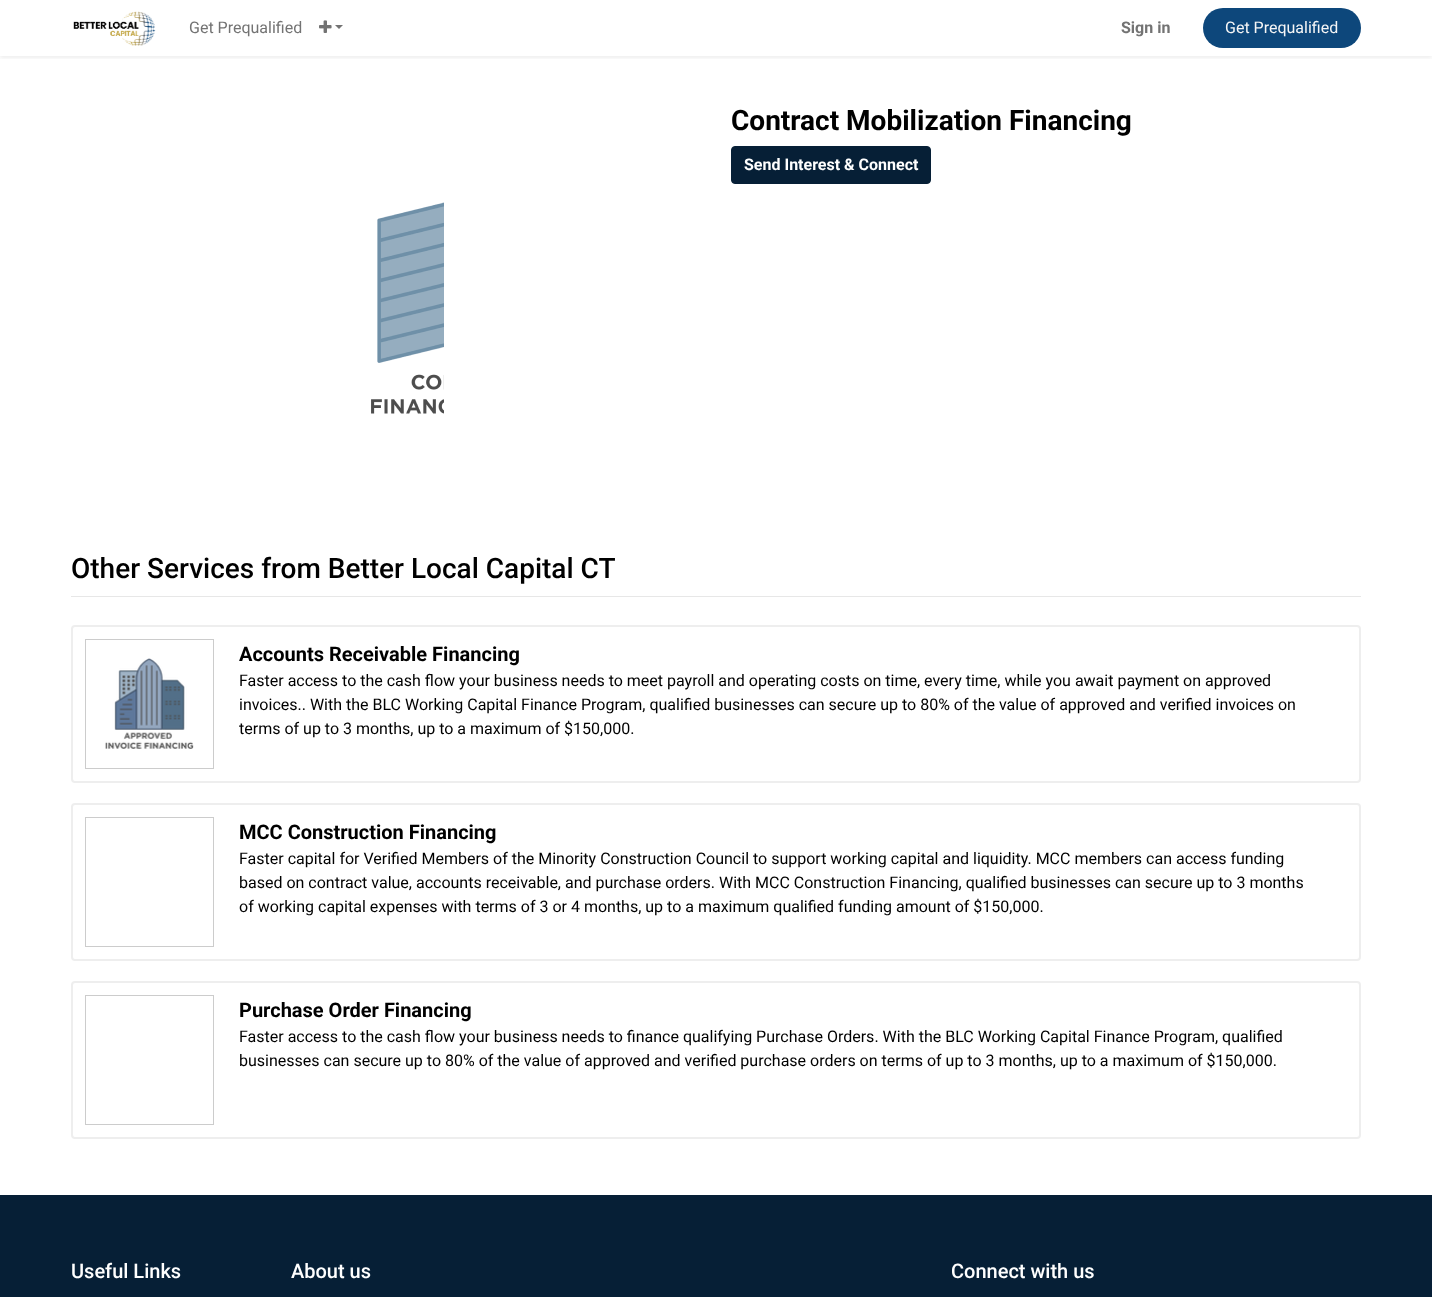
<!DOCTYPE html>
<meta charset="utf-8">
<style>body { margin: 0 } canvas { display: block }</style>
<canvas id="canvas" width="1432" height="1297"></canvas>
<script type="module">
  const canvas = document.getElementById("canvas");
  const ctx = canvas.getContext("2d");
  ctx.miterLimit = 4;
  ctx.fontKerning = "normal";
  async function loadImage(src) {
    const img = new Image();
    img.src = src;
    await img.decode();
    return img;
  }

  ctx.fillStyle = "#ffffff";
  ctx.fillRect(0, 0, 1432, 1297);
  ctx.save();
  ctx.beginPath();
  ctx.rect(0, 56, 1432, 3);
  ctx.clip();
  ctx.fillStyle = "rgba(0, 0, 0, 0.07)";
  ctx.filter = "blur(2px)";
  ctx.beginPath();
  ctx.rect(0, 2, 1432, 56);
  ctx.fill();
  ctx.filter = "none";
  ctx.restore();
  ctx.drawImage(await loadImage("img1.png"), 73, 11, 83, 35);
  ctx.font = "16px Roboto";
  ctx.fillStyle = "#737373";
  ctx.fillText("Get Prequalified", 189, 33);
  ctx.drawImage(await loadImage("img2.png"), 319, 20, 13, 13);
  ctx.beginPath();
  ctx.moveTo(335, 25);
  ctx.lineTo(343, 25);
  ctx.lineTo(339, 29);
  ctx.closePath();
  ctx.fill();
  ctx.font = "bold 16px Roboto";
  ctx.fillText("Sign in", 1121, 33);
  ctx.fillStyle = "#0d477b";
  ctx.beginPath();
  ctx.roundRect(1203, 8, 158, 40, 20);
  ctx.fill();
  ctx.font = "16px Roboto";
  ctx.fillStyle = "#f6f6f6";
  ctx.fillText("Get Prequalified", 1225, 33);
  ctx.font = "bold 28px Roboto";
  ctx.fillStyle = "#000000";
  ctx.fillText("Contract Mobilization Financing", 731, 130);
  ctx.fillStyle = "#061f36";
  ctx.beginPath();
  ctx.roundRect(731.5, 146.5, 199, 37, 3.5);
  ctx.fill();
  ctx.strokeStyle = "#061f36";
  ctx.stroke();
  ctx.font = "bold 16px Roboto";
  ctx.fillStyle = "#ffffff";
  ctx.fillText("Send Interest & Connect", 744, 170);
  ctx.drawImage(await loadImage("img3.png"), 371, 202, 73, 212);
  ctx.fillStyle = "#e7e7e7";
  ctx.fillRect(71, 596, 1290, 1);
  ctx.font = "500 28px Roboto";
  ctx.fillStyle = "#000000";
  ctx.fillText("Other Services from Better Local Capital CT", 71, 578);
  ctx.beginPath();
  ctx.roundRect(72, 626, 1288, 156, 3);
  ctx.strokeStyle = "#eeeeee";
  ctx.lineWidth = 2;
  ctx.stroke();
  ctx.strokeStyle = "#cccccc";
  ctx.lineWidth = 1;
  ctx.strokeRect(85.5, 639.5, 128, 129);
  ctx.drawImage(await loadImage("img4.png"), 105, 658, 89, 91);
  ctx.font = "bold 20px Roboto";
  ctx.fillText("Accounts Receivable Financing", 239, 661);
  ctx.font = "16px Roboto";
  ctx.fillText("Faster access to the cash flow your business needs to meet payroll and operating costs on time, every time, while you await payment on approved", 239, 686);
  ctx.fillText("invoices.. With the BLC Working Capital Finance Program, qualified businesses can secure up to 80% of the value of approved and verified invoices on", 239, 710);
  ctx.fillText("terms of up to 3 months, up to a maximum of $150,000.", 239, 734);
  ctx.beginPath();
  ctx.roundRect(72, 804, 1288, 156, 3);
  ctx.strokeStyle = "#eeeeee";
  ctx.lineWidth = 2;
  ctx.stroke();
  ctx.strokeStyle = "#cccccc";
  ctx.lineWidth = 1;
  ctx.strokeRect(85.5, 817.5, 128, 129);
  ctx.font = "bold 20px Roboto";
  ctx.fillText("MCC Construction Financing", 239, 839);
  ctx.font = "16px Roboto";
  ctx.fillText("Faster capital for Verified Members of the Minority Construction Council to support working capital and liquidity. MCC members can access funding", 239, 864);
  ctx.fillText("based on contract value, accounts receivable, and purchase orders. With MCC Construction Financing, qualified businesses can secure up to 3 months", 239, 888);
  ctx.fillText("of working capital expenses with terms of 3 or 4 months, up to a maximum qualified funding amount of $150,000.", 239, 912);
  ctx.beginPath();
  ctx.roundRect(72, 982, 1288, 156, 3);
  ctx.strokeStyle = "#eeeeee";
  ctx.lineWidth = 2;
  ctx.stroke();
  ctx.strokeStyle = "#cccccc";
  ctx.lineWidth = 1;
  ctx.strokeRect(85.5, 995.5, 128, 129);
  ctx.font = "bold 20px Roboto";
  ctx.fillText("Purchase Order Financing", 239, 1017);
  ctx.font = "16px Roboto";
  ctx.fillText("Faster access to the cash flow your business needs to finance qualifying Purchase Orders. With the BLC Working Capital Finance Program, qualified", 239, 1042);
  ctx.fillText("businesses can secure up to 80% of the value of approved and verified purchase orders on terms of up to 3 months, up to a maximum of $150,000.", 239, 1066);
  ctx.fillStyle = "#061f36";
  ctx.fillRect(0, 1195, 1432, 102);
  ctx.font = "500 20px Roboto";
  ctx.fillStyle = "#ffffff";
  ctx.fillText("Useful Links", 71, 1278);
  ctx.fillText("About us", 291, 1278);
  ctx.fillText("Connect with us", 951, 1278);
</script>
